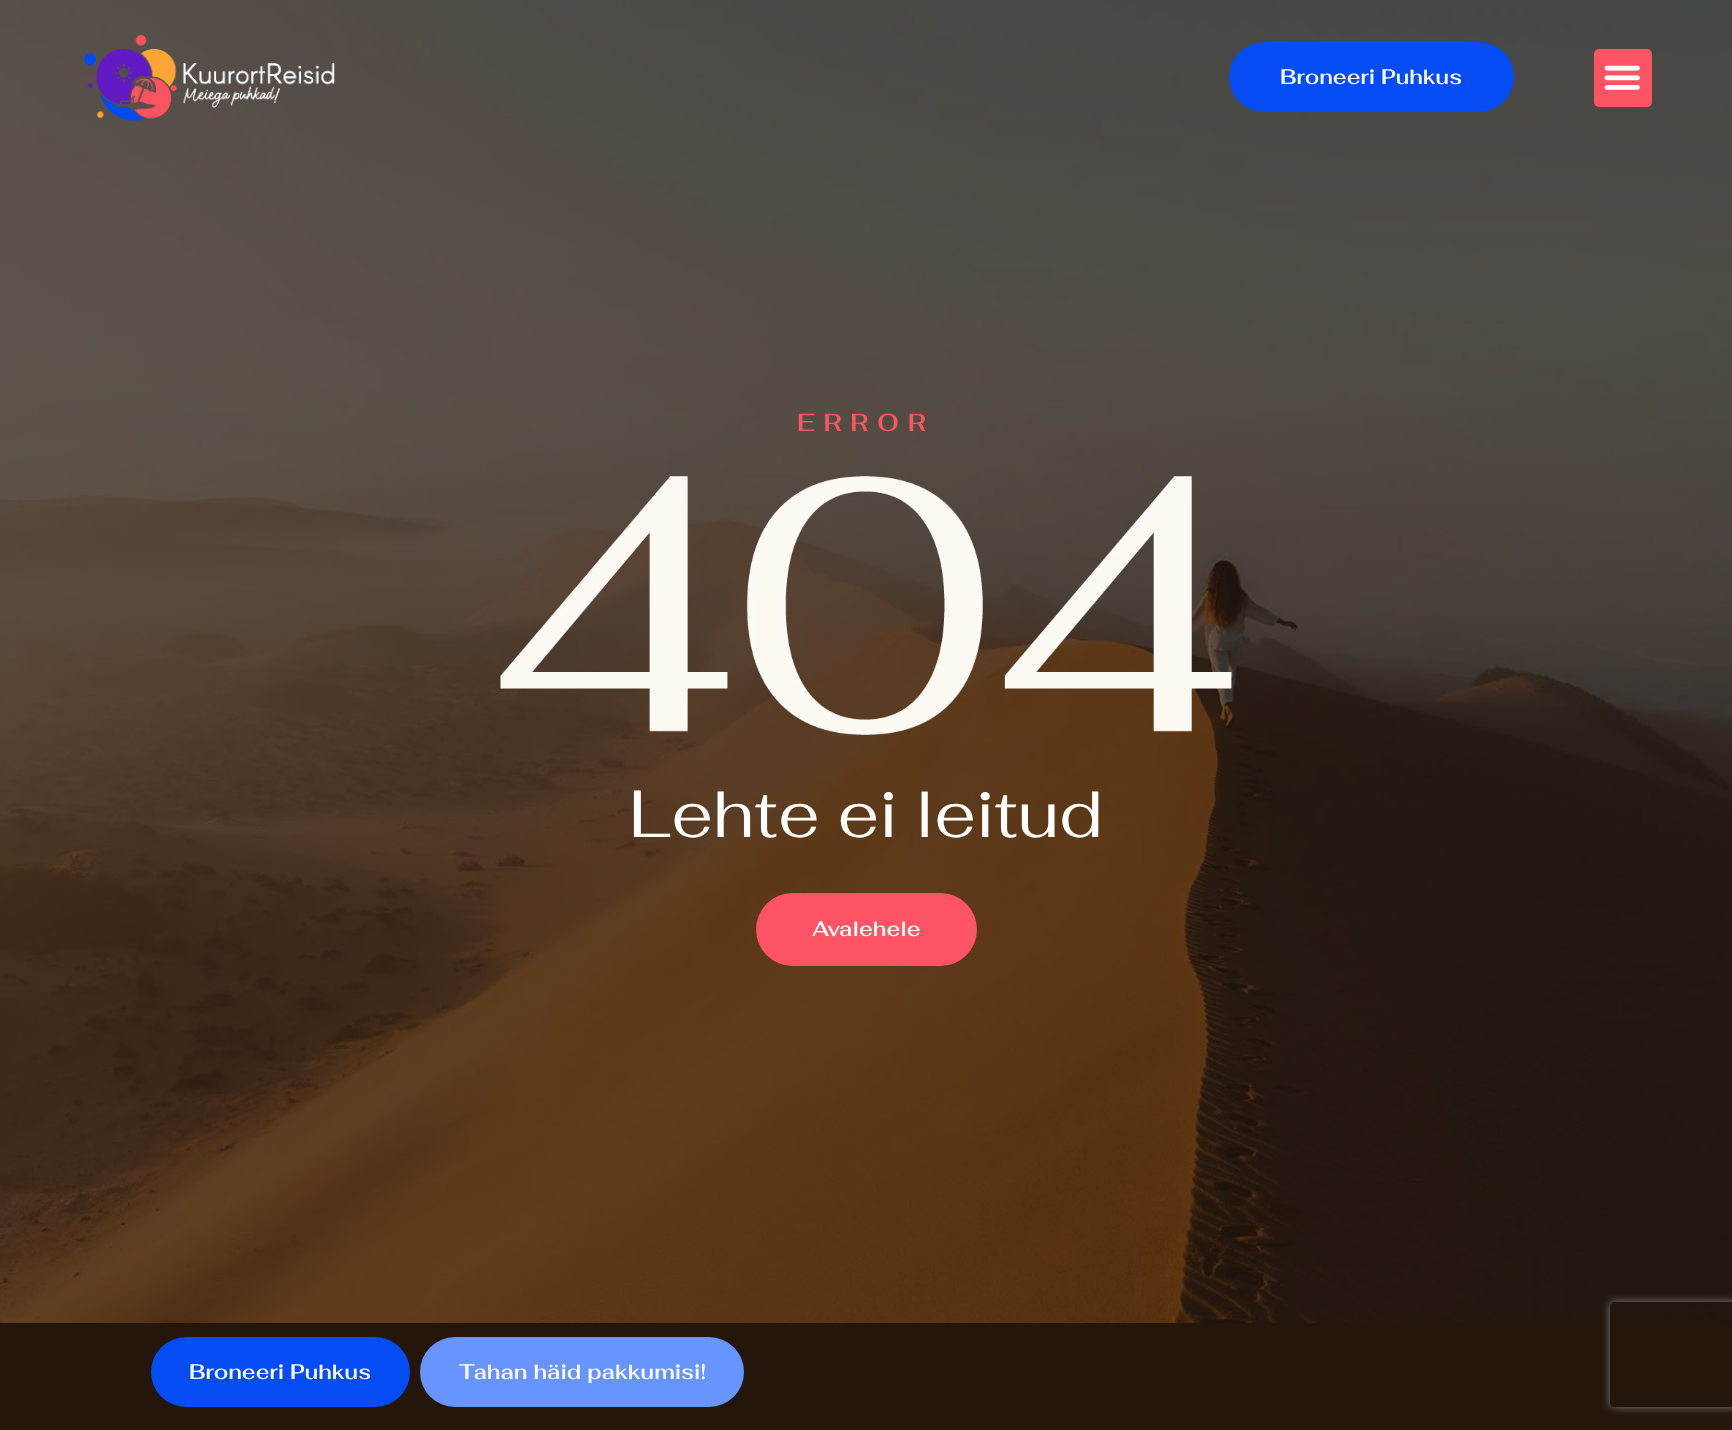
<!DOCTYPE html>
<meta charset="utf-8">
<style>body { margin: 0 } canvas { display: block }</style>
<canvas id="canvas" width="1732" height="1430"></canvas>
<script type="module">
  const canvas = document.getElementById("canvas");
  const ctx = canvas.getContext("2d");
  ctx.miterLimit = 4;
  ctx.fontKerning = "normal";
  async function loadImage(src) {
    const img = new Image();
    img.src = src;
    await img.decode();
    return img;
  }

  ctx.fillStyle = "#ffffff";
  ctx.fillRect(0, 0, 1732, 1430);
  ctx.drawImage(await loadImage("img3.png"), 0, 0, 1732, 1323);
  ctx.drawImage(await loadImage("img1.png"), 84, 35, 251, 86);
  ctx.fillStyle = "#044cf4";
  ctx.beginPath();
  ctx.roundRect(1229, 42, 285, 70, 35);
  ctx.fill();
  ctx.font = "600 21px Fahkwang";
  ctx.fillStyle = "#ffffff";
  ctx.fillText("Broneeri Puhkus", 1280, 84);
  ctx.fillStyle = "#fc5464";
  ctx.beginPath();
  ctx.roundRect(1594, 49, 58, 58, 5);
  ctx.fill();
  ctx.drawImage(await loadImage("img2.png"), 1604, 65, 36, 25);
  ctx.letterSpacing = "8.75px";
  ctx.font = "600 24.5px Fahkwang";
  ctx.fillText("ERROR", 797, 431);
  ctx.drawImage(await loadImage("img4.png"), 500, 476, 732, 259);
  ctx.letterSpacing = "0px";
  ctx.font = "66.5px Fahkwang";
  ctx.fillStyle = "#ffffff";
  ctx.fillText("Lehte ei leitud", 629, 837);
  ctx.fillStyle = "#fc5464";
  ctx.beginPath();
  ctx.roundRect(756, 893, 221, 73, 36.5);
  ctx.fill();
  ctx.font = "600 21px Fahkwang";
  ctx.fillStyle = "#ffffff";
  ctx.fillText("Avalehele", 812, 936);
  ctx.fillStyle = "#24160b";
  ctx.fillRect(0, 1323, 1732, 107);
  ctx.fillStyle = "#044cf4";
  ctx.beginPath();
  ctx.roundRect(151, 1337, 259, 70, 35);
  ctx.fill();
  ctx.fillStyle = "#ffffff";
  ctx.fillText("Broneeri Puhkus", 189, 1379);
  ctx.fillStyle = "#6794ff";
  ctx.beginPath();
  ctx.roundRect(420, 1337, 324, 70, 35);
  ctx.fill();
  ctx.fillStyle = "#ffffff";
  ctx.fillText("Tahan häid pakkumisi!", 459, 1379);
  ctx.save();
  ctx.beginPath();
  ctx.moveTo(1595, 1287);
  ctx.lineTo(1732, 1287);
  ctx.lineTo(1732, 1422);
  ctx.lineTo(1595, 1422);
  ctx.closePath();
  ctx.moveTo(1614, 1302);
  ctx.lineTo(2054, 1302);
  ctx.bezierCurveTo(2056, 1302, 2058, 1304, 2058, 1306);
  ctx.lineTo(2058, 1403);
  ctx.bezierCurveTo(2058, 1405, 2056, 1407, 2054, 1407);
  ctx.lineTo(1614, 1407);
  ctx.bezierCurveTo(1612, 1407, 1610, 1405, 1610, 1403);
  ctx.lineTo(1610, 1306);
  ctx.bezierCurveTo(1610, 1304, 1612, 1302, 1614, 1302);
  ctx.closePath();
  ctx.clip("evenodd");
  ctx.fillStyle = "#808080";
  ctx.filter = "blur(4.5px)";
  ctx.beginPath();
  ctx.roundRect(1610, 1302, 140, 105, 4);
  ctx.fill();
  ctx.filter = "none";
  ctx.restore();
</script>
